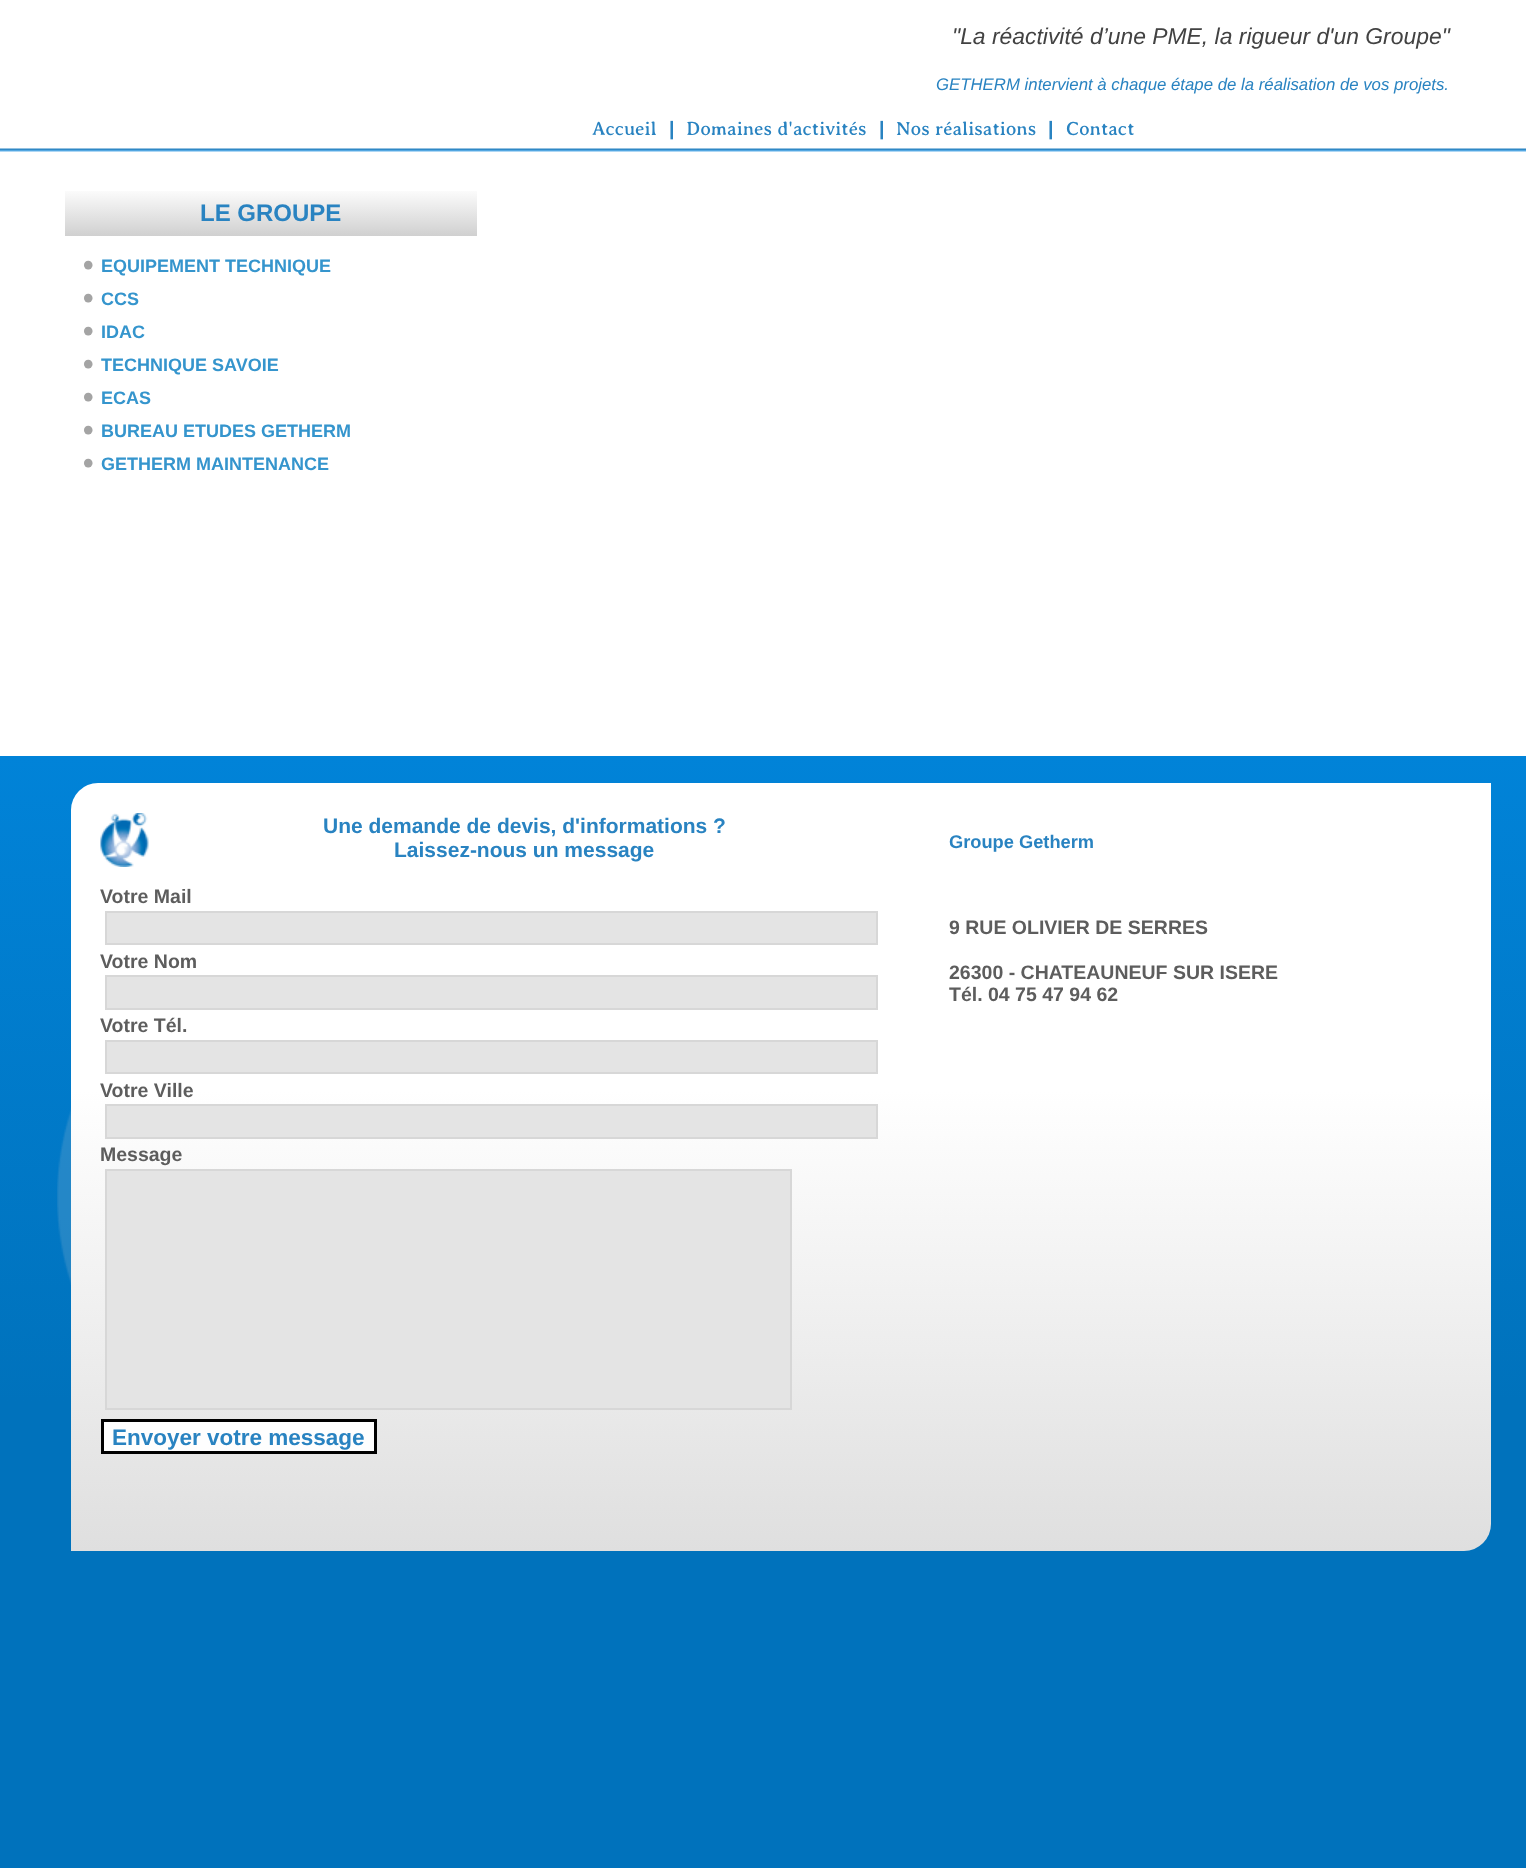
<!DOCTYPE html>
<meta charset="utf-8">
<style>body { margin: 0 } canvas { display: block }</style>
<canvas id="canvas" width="1526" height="1868"></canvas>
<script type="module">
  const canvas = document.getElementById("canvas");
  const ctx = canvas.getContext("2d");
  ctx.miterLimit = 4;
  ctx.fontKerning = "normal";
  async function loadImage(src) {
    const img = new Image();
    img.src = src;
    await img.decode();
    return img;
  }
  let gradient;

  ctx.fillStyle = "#ffffff";
  ctx.fillRect(0, 0, 1526, 1868);
  ctx.drawImage(await loadImage("img1.png"), 0, 148, 1526, 4);
  ctx.font = "italic 22.9px Liberation Sans";
  ctx.fillStyle = "#424242";
  ctx.fillText("\"La réactivité d’une PME, la rigueur d'un Groupe\"", 952, 44);
  ctx.font = "italic 16.8px Liberation Sans";
  ctx.fillStyle = "#2983c1";
  ctx.fillText("GETHERM intervient à chaque étape de la réalisation de vos projets.", 936, 90);
  ctx.font = "19.5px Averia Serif";
  ctx.fillText("Accueil", 592, 135);
  ctx.font = "bold 19.5px Liberation Sans";
  ctx.fillText("|", 669, 135);
  ctx.font = "19.5px Averia Serif";
  ctx.fillText("Domaines d'activités", 686, 135);
  ctx.font = "bold 19.5px Liberation Sans";
  ctx.fillText("|", 879, 135);
  ctx.font = "19.5px Averia Serif";
  ctx.fillText("Nos réalisations", 896, 135);
  ctx.font = "bold 19.5px Liberation Sans";
  ctx.fillText("|", 1048, 135);
  ctx.font = "19.5px Averia Serif";
  ctx.fillText("Contact", 1066, 135);
  gradient = ctx.createLinearGradient(271, 190, 271, 236);
  gradient.addColorStop(0, "#fcfcfc");
  gradient.addColorStop(1, "#d0d0d0");
  ctx.fillStyle = gradient;
  ctx.fillRect(65, 191, 412, 45);
  ctx.font = "bold 24px Liberation Sans";
  ctx.fillStyle = "#2983c1";
  ctx.fillText("LE GROUPE", 200, 221);
  ctx.font = "bold 30px Liberation Sans";
  ctx.fillStyle = "#a4a4a4";
  ctx.fillText("•", 83, 275);
  ctx.font = "bold 18px Liberation Sans";
  ctx.fillStyle = "#3595cd";
  ctx.fillText("EQUIPEMENT TECHNIQUE", 101, 272);
  ctx.font = "bold 30px Liberation Sans";
  ctx.fillStyle = "#a4a4a4";
  ctx.fillText("•", 83, 308);
  ctx.font = "bold 18px Liberation Sans";
  ctx.fillStyle = "#3595cd";
  ctx.fillText("CCS", 101, 305);
  ctx.font = "bold 30px Liberation Sans";
  ctx.fillStyle = "#a4a4a4";
  ctx.fillText("•", 83, 341);
  ctx.font = "bold 18px Liberation Sans";
  ctx.fillStyle = "#3595cd";
  ctx.fillText("IDAC", 101, 338);
  ctx.font = "bold 30px Liberation Sans";
  ctx.fillStyle = "#a4a4a4";
  ctx.fillText("•", 83, 374);
  ctx.font = "bold 18px Liberation Sans";
  ctx.fillStyle = "#3595cd";
  ctx.fillText("TECHNIQUE SAVOIE", 101, 371);
  ctx.font = "bold 30px Liberation Sans";
  ctx.fillStyle = "#a4a4a4";
  ctx.fillText("•", 83, 407);
  ctx.font = "bold 18px Liberation Sans";
  ctx.fillStyle = "#3595cd";
  ctx.fillText("ECAS", 101, 404);
  ctx.font = "bold 30px Liberation Sans";
  ctx.fillStyle = "#a4a4a4";
  ctx.fillText("•", 83, 440);
  ctx.font = "bold 18px Liberation Sans";
  ctx.fillStyle = "#3595cd";
  ctx.fillText("BUREAU ETUDES GETHERM", 101, 437);
  ctx.font = "bold 30px Liberation Sans";
  ctx.fillStyle = "#a4a4a4";
  ctx.fillText("•", 83, 473);
  ctx.font = "bold 18px Liberation Sans";
  ctx.fillStyle = "#3595cd";
  ctx.fillText("GETHERM MAINTENANCE", 101, 470);
  gradient = ctx.createLinearGradient(763, 756, 764, 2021);
  gradient.addColorStop(0, "#0183d8");
  gradient.addColorStop(0.51, "#0072bc");
  gradient.addColorStop(1, "#0072bc");
  ctx.fillStyle = gradient;
  ctx.fillRect(0, 756, 1526, 1112);
  ctx.drawImage(await loadImage("img2.png"), 57, 1108, 14, 177);
  gradient = ctx.createLinearGradient(781, 783, 781, 1551);
  gradient.addColorStop(0.4, "#ffffff");
  gradient.addColorStop(1, "#dfdfdf");
  ctx.fillStyle = gradient;
  ctx.beginPath();
  ctx.roundRect(71, 783, 1420, 768, [27, 0, 27, 0]);
  ctx.fill();
  ctx.drawImage(await loadImage("img3.png"), 100, 813, 49, 54);
  ctx.font = "bold 21px Liberation Sans";
  ctx.fillStyle = "#2983c1";
  ctx.fillText("Une demande de devis, d'informations ?", 323, 833);
  ctx.fillText("Laissez-nous un message", 394, 857);
  ctx.font = "bold 19.5px Liberation Sans";
  ctx.fillStyle = "#5d5d5d";
  ctx.fillText("Votre Mail", 100, 903);
  ctx.fillStyle = "#e4e4e4";
  ctx.beginPath();
  ctx.rect(106, 912, 771, 32);
  ctx.fill();
  ctx.strokeStyle = "#d7d7d7";
  ctx.lineWidth = 2;
  ctx.stroke();
  ctx.fillStyle = "#5d5d5d";
  ctx.fillText("Votre Nom", 100, 968);
  ctx.fillStyle = "#e4e4e4";
  ctx.beginPath();
  ctx.rect(106, 976, 771, 33);
  ctx.fill();
  ctx.stroke();
  ctx.fillStyle = "#5d5d5d";
  ctx.fillText("Votre Tél.", 100, 1032);
  ctx.fillStyle = "#e4e4e4";
  ctx.beginPath();
  ctx.rect(106, 1041, 771, 32);
  ctx.fill();
  ctx.stroke();
  ctx.fillStyle = "#5d5d5d";
  ctx.fillText("Votre Ville", 100, 1097);
  ctx.fillStyle = "#e4e4e4";
  ctx.beginPath();
  ctx.rect(106, 1105, 771, 33);
  ctx.fill();
  ctx.stroke();
  ctx.fillStyle = "#5d5d5d";
  ctx.fillText("Message", 100, 1161);
  ctx.fillStyle = "#e4e4e4";
  ctx.beginPath();
  ctx.rect(106, 1170, 685, 239);
  ctx.fill();
  ctx.stroke();
  ctx.fillStyle = "#fefefe";
  ctx.beginPath();
  ctx.rect(102.5, 1420.5, 273, 32);
  ctx.fill();
  ctx.strokeStyle = "#000000";
  ctx.lineWidth = 3;
  ctx.stroke();
  ctx.font = "bold 22.5px Liberation Sans";
  ctx.fillStyle = "#2983c1";
  ctx.fillText("Envoyer votre message", 112, 1445);
  ctx.font = "bold 18.25px Liberation Sans";
  ctx.fillText("Groupe Getherm", 949, 848);
  ctx.font = "bold 19.5px Liberation Sans";
  ctx.fillStyle = "#5d5d5d";
  ctx.fillText("9 RUE OLIVIER DE SERRES", 949, 934);
  ctx.fillText("26300 - CHATEAUNEUF SUR ISERE", 949, 979);
  ctx.fillText("Tél. 04 75 47 94 62", 949, 1001);
</script>
